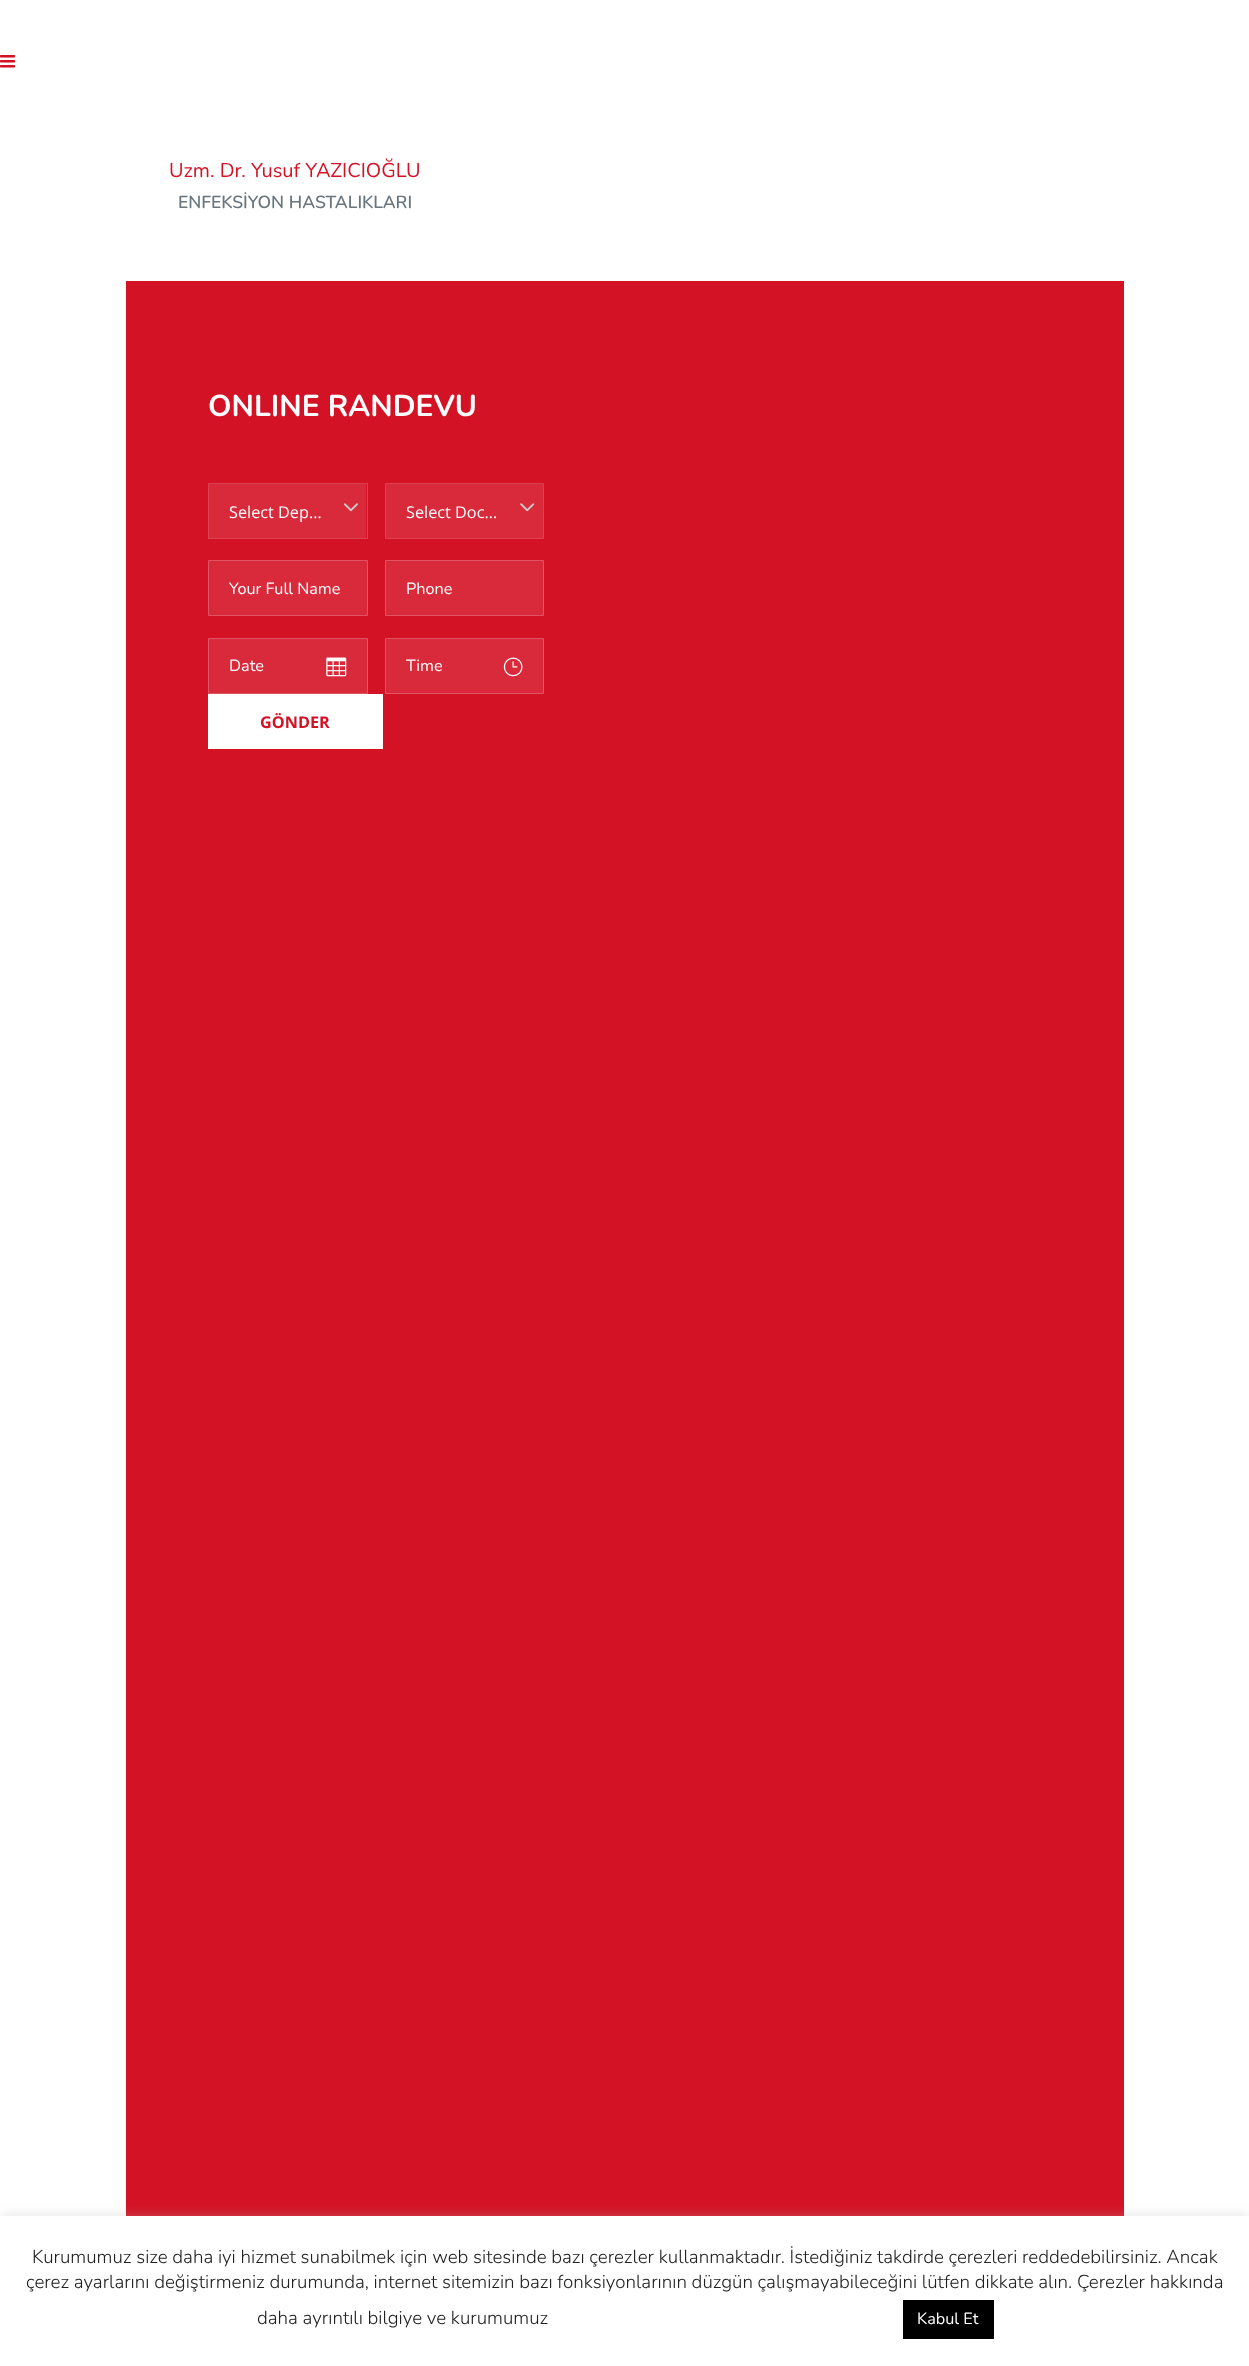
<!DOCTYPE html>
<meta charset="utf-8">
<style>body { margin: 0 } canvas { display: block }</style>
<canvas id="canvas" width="1249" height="2366"></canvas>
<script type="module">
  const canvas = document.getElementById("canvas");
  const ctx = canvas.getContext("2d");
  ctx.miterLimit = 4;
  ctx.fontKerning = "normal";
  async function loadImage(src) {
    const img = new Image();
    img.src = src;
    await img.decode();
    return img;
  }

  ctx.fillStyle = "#ffffff";
  ctx.fillRect(0, 0, 1249, 2366);
  ctx.drawImage(await loadImage("img1.png"), 0, 55, 15, 13);
  ctx.font = "20px Nunito";
  ctx.fillStyle = "#d41225";
  ctx.fillText("Uzm. Dr. Yusuf YAZICIOĞLU", 169, 177);
  ctx.font = "600 17.5px Nunito";
  ctx.fillStyle = "#6a767e";
  ctx.fillText("ENFEKSİYON HASTALIKLARI", 178, 208);
  ctx.fillStyle = "#d41225";
  ctx.fillRect(126, 281, 998, 1935);
  ctx.font = "bold 30px Nunito";
  ctx.fillStyle = "#ffffff";
  ctx.fillText("ONLINE RANDEVU", 208, 416);
  ctx.fillStyle = "#d82a3b";
  ctx.fillRect(209, 484, 157, 54);
  ctx.strokeStyle = "#dd4151";
  ctx.strokeRect(208.5, 483.5, 159, 55);
  ctx.font = "16.25px Open Sans";
  ctx.fillStyle = "#ffffff";
  ctx.fillText("Select Dep…", 229, 518);
  ctx.drawImage(await loadImage("img2.png"), 344, 503, 14, 9);
  ctx.fillStyle = "#d82a3b";
  ctx.beginPath();
  ctx.rect(385.5, 483.5, 158, 55);
  ctx.fill();
  ctx.stroke();
  ctx.fillStyle = "#ffffff";
  ctx.fillText("Select Doc…", 406, 518);
  ctx.drawImage(await loadImage("img3.png"), 520, 503, 15, 9);
  ctx.fillStyle = "#d82a3b";
  ctx.beginPath();
  ctx.rect(208.5, 560.5, 159, 55);
  ctx.fill();
  ctx.strokeStyle = "#e05562";
  ctx.stroke();
  ctx.font = "16.25px Nunito";
  ctx.fillStyle = "#ffffff";
  ctx.fillText("Your Full Name", 229, 594);
  ctx.fillStyle = "#d82a3b";
  ctx.beginPath();
  ctx.rect(385.5, 560.5, 158, 55);
  ctx.fill();
  ctx.stroke();
  ctx.fillStyle = "#ffffff";
  ctx.fillText("Phone", 406, 594);
  ctx.fillStyle = "#d82a3b";
  ctx.beginPath();
  ctx.rect(208.5, 638.5, 159, 55);
  ctx.fill();
  ctx.stroke();
  ctx.fillStyle = "#ffffff";
  ctx.fillText("Date", 229, 671);
  ctx.drawImage(await loadImage("img4.png"), 326, 657, 21, 20);
  ctx.fillStyle = "#d82a3b";
  ctx.beginPath();
  ctx.rect(385.5, 638.5, 158, 55);
  ctx.fill();
  ctx.stroke();
  ctx.fillStyle = "#ffffff";
  ctx.fillText("Time", 406, 671);
  ctx.drawImage(await loadImage("img5.png"), 503, 657, 20, 20);
  ctx.fillRect(208, 694, 175, 55);
  ctx.font = "bold 16.25px Open Sans";
  ctx.fillStyle = "#d41225";
  ctx.fillText("GÖNDER", 260, 728);
  ctx.fillStyle = "rgba(172, 171, 171, 0.3)";
  ctx.filter = "blur(6px)";
  ctx.beginPath();
  ctx.rect(0, 2215, 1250, 150);
  ctx.fill();
  ctx.filter = "none";
  ctx.fillStyle = "#ffffff";
  ctx.fillRect(0, 2216, 1249, 150);
  ctx.font = "300 18.75px Nunito";
  ctx.fillStyle = "#212121";
  ctx.fillText("Kurumumuz size daha iyi hizmet sunabilmek için web sitesinde bazı çerezler kullanmaktadır. İstediğiniz takdirde çerezleri reddedebilirsiniz. Ancak", 32, 2263);
  ctx.fillText("çerez ayarlarını değiştirmeniz durumunda, internet sitemizin bazı fonksiyonlarının düzgün çalışmayabileceğini lütfen dikkate alın. Çerezler hakkında", 26, 2288);
  ctx.fillText("daha ayrıntılı bilgiye ve kurumumuz", 257, 2324);
  ctx.fillStyle = "#000000";
  ctx.fillRect(903, 2300, 91, 39);
  ctx.font = "16.25px Nunito";
  ctx.fillStyle = "#ffffff";
  ctx.fillText("Kabul Et", 917, 2324);
</script>
